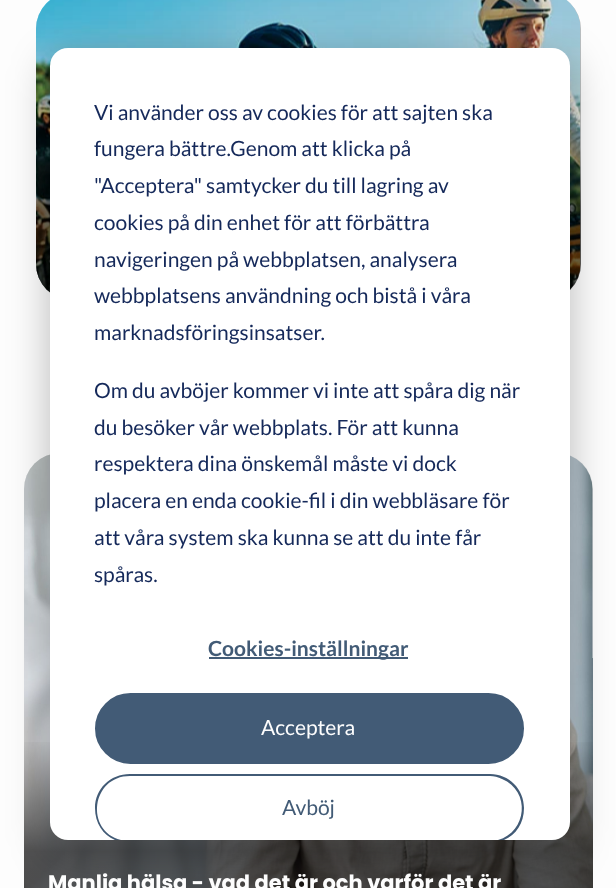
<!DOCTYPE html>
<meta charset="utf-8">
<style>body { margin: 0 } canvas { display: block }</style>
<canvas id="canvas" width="616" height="888"></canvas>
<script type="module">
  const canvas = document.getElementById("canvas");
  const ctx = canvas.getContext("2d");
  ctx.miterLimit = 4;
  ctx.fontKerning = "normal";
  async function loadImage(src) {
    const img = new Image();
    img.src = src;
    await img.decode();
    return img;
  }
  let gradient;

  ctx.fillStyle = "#fdfdfd";
  ctx.fillRect(0, 0, 616, 888);
  ctx.fillStyle = "#d3d3d3";
  ctx.beginPath();
  ctx.roundRect(36, -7, 545, 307, 36);
  ctx.fill();
  ctx.drawImage(await loadImage("img1.png"), 36, 0, 545, 293);
  gradient = ctx.createLinearGradient(308, -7.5, 308, 300);
  gradient.addColorStop(0.5, "rgba(0, 0, 0, 0)");
  gradient.addColorStop(0.7, "rgba(0, 0, 0, 0.5)");
  ctx.fillStyle = gradient;
  ctx.beginPath();
  ctx.roundRect(36, -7, 545, 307, 36);
  ctx.fill();
  ctx.fillStyle = "rgba(0, 0, 0, 0.1)";
  ctx.beginPath();
  ctx.roundRect(36, -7, 545, 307, 36);
  ctx.fill();
  ctx.fillStyle = "#eaebec";
  ctx.beginPath();
  ctx.roundRect(24, 453, 569, 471, 36);
  ctx.fill();
  ctx.drawImage(await loadImage("img2.png"), 24, 454, 569, 434);
  gradient = ctx.createLinearGradient(308, 453, 308, 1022);
  gradient.addColorStop(0.5, "rgba(0, 0, 0, 0)");
  gradient.addColorStop(0.7, "rgba(0, 0, 0, 0.6)");
  ctx.fillStyle = gradient;
  ctx.fillRect(24, 742, 569, 146);
  ctx.fillStyle = "rgba(0, 0, 0, 0.28)";
  ctx.filter = "blur(21px)";
  ctx.beginPath();
  ctx.roundRect(50, 60, 520, 792, 18);
  ctx.fill();
  ctx.filter = "none";
  ctx.fillStyle = "#ffffff";
  ctx.beginPath();
  ctx.roundRect(50, 48, 520, 792, 18);
  ctx.fill();
  ctx.font = "21px Lato";
  ctx.fillStyle = "#15295a";
  ctx.fillText("Vi använder oss av cookies för att sajten ska", 94, 120);
  ctx.fillText("fungera bättre.Genom att klicka på", 94, 156);
  ctx.fillText("\"Acceptera\" samtycker du till lagring av", 94, 193);
  ctx.fillText("cookies på din enhet för att förbättra", 94, 230);
  ctx.fillText("navigeringen på webbplatsen, analysera", 94, 267);
  ctx.fillText("webbplatsens användning och bistå i våra", 94, 303);
  ctx.fillText("marknadsföringsinsatser.", 94, 340);
  ctx.fillText("Om du avböjer kommer vi inte att spåra dig när", 94, 398);
  ctx.fillText("du besöker vår webbplats. För att kunna", 94, 435);
  ctx.fillText("respektera dina önskemål måste vi dock", 94, 471);
  ctx.fillText("placera en enda cookie-fil i din webbläsare för", 94, 508);
  ctx.fillText("att våra system ska kunna se att du inte får", 94, 545);
  ctx.fillText("spåras.", 94, 582);
  ctx.fillStyle = "#425b76";
  ctx.fillRect(209, 657, 199, 2);
  ctx.font = "bold 21px Lato";
  ctx.fillText("Cookies-inställningar", 208, 656);
  ctx.beginPath();
  ctx.roundRect(96, 694, 427, 69, 34.5);
  ctx.fill();
  ctx.strokeStyle = "#425b76";
  ctx.lineWidth = 2;
  ctx.stroke();
  ctx.font = "21px Lato";
  ctx.fillStyle = "#fdfdfd";
  ctx.fillText("Acceptera", 261, 735);
  ctx.fillStyle = "#425b76";
  ctx.beginPath();
  ctx.moveTo(130, 774);
  ctx.bezierCurveTo(110, 774, 95, 789, 95, 808);
  ctx.bezierCurveTo(95, 823, 103, 835, 115, 840);
  ctx.lineTo(121, 840);
  ctx.bezierCurveTo(85, 831, 91, 776, 130, 776);
  ctx.lineTo(490, 776);
  ctx.bezierCurveTo(494, 776, 498, 777, 502, 779);
  ctx.bezierCurveTo(531, 791, 527, 832, 498, 840);
  ctx.lineTo(504, 840);
  ctx.bezierCurveTo(516, 835, 524, 823, 524, 808);
  ctx.bezierCurveTo(524, 789, 509, 774, 490, 774);
  ctx.closePath();
  ctx.fill();
  ctx.fillText("Avböj", 282, 815);
  ctx.font = "bold 21px Poppins";
  ctx.fillStyle = "#fdfdfd";
  ctx.fillText("Manlig hälsa - vad det är och varför det är", 48, 890);
</script>
